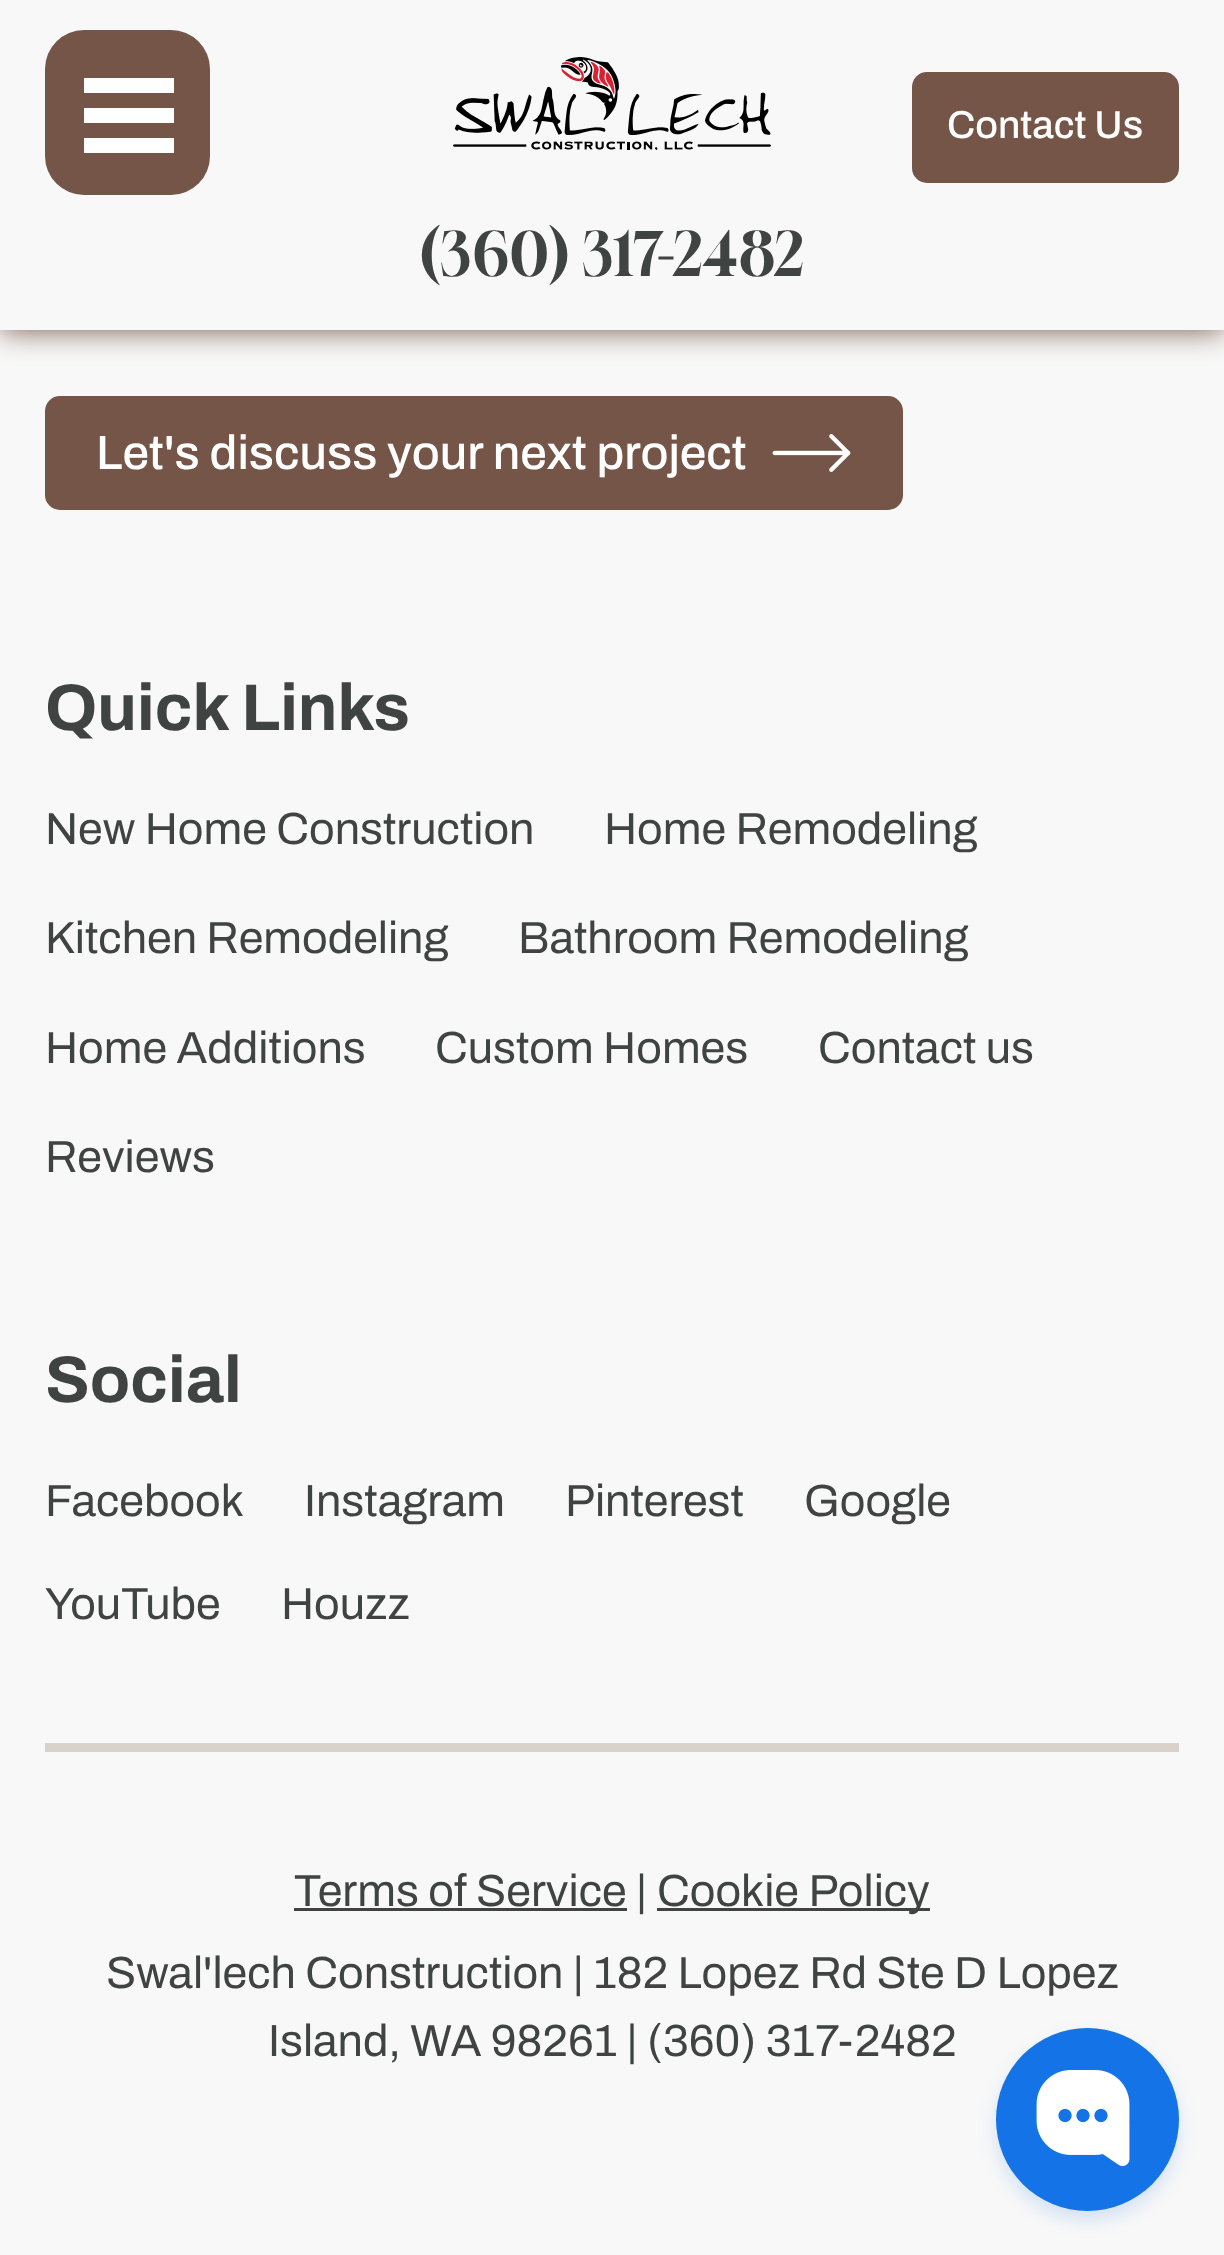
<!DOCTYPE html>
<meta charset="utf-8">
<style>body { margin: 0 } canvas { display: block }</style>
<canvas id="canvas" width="1224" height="2255"></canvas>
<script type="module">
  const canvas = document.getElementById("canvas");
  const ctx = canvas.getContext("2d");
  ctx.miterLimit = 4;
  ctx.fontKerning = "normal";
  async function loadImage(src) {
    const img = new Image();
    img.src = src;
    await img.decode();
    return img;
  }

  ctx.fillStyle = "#f8f8f8";
  ctx.fillRect(0, 0, 1224, 2255);
  ctx.fillStyle = "#745547";
  ctx.filter = "blur(15px)";
  ctx.beginPath();
  ctx.rect(0, 0, 1224, 330);
  ctx.fill();
  ctx.filter = "none";
  ctx.fillStyle = "#f8f8f8";
  ctx.fillRect(0, 0, 1224, 330);
  ctx.fillStyle = "#745547";
  ctx.beginPath();
  ctx.roundRect(45, 30, 165, 165, 39);
  ctx.fill();
  ctx.fillStyle = "#ffffff";
  ctx.fillRect(84, 138, 90, 15);
  ctx.fillRect(84, 108, 90, 15);
  ctx.fillRect(84, 78, 90, 15);
  ctx.drawImage(await loadImage("img1.png"), 453, 57, 318, 93);
  ctx.fillStyle = "#745547";
  ctx.beginPath();
  ctx.roundRect(915, 75, 261, 105, 12);
  ctx.fill();
  ctx.strokeStyle = "#745547";
  ctx.lineWidth = 6;
  ctx.stroke();
  ctx.font = "500 39px Archivo";
  ctx.fillStyle = "#ffffff";
  ctx.fillText("Contact Us", 947, 138);
  ctx.font = "60px Gloock";
  ctx.fillStyle = "#3f4443";
  ctx.fillText("(360) 317-2482", 420, 276);
  ctx.fillStyle = "#745547";
  ctx.beginPath();
  ctx.roundRect(48, 399, 852, 108, 12);
  ctx.fill();
  ctx.stroke();
  ctx.font = "500 48px Archivo";
  ctx.fillStyle = "#ffffff";
  ctx.fillText("Let's discuss your next project", 96, 469);
  ctx.drawImage(await loadImage("img2.png"), 772, 434, 79, 38);
  ctx.font = "bold 66px Archivo";
  ctx.fillStyle = "#3f4443";
  ctx.fillText("Quick Links", 45, 730);
  ctx.font = "45px Archivo";
  ctx.fillText("New Home Construction", 45, 844);
  ctx.fillText("Home Remodeling", 604, 844);
  ctx.fillText("Kitchen Remodeling", 45, 953);
  ctx.fillText("Bathroom Remodeling", 518, 953);
  ctx.fillText("Home Additions", 45, 1063);
  ctx.fillText("Custom Homes", 435, 1063);
  ctx.fillText("Contact us", 818, 1063);
  ctx.fillText("Reviews", 45, 1172);
  ctx.font = "bold 66px Archivo";
  ctx.fillText("Social", 45, 1402);
  ctx.font = "45px Archivo";
  ctx.fillText("Facebook", 45, 1516);
  ctx.fillText("Instagram", 304, 1516);
  ctx.fillText("Pinterest", 565, 1516);
  ctx.fillText("Google", 804, 1516);
  ctx.fillText("YouTube", 45, 1619);
  ctx.fillText("Houzz", 281, 1619);
  ctx.fillStyle = "#d9d2ca";
  ctx.fillRect(45, 1743, 1134, 9);
  ctx.fillStyle = "#3f4443";
  ctx.fillRect(294, 1908, 333, 3);
  ctx.fillText("Terms of Service |", 294, 1906);
  ctx.fillRect(657, 1908, 273, 3);
  ctx.fillText("Cookie Policy", 657, 1906);
  ctx.fillText("Swal'lech Construction | 182 Lopez Rd Ste D Lopez", 106, 1988);
  ctx.fillText("Island, WA 98261 | (360) 317-2482", 268, 2056);
  ctx.fillStyle = "rgba(20, 115, 230, 0.16)";
  ctx.filter = "blur(9px)";
  ctx.beginPath();
  ctx.roundRect(996, 2037, 183, 183, 91.5);
  ctx.fill();
  ctx.filter = "none";
  ctx.fillStyle = "rgba(3, 3, 3, 0.25)";
  ctx.filter = "blur(6px)";
  ctx.beginPath();
  ctx.roundRect(1038, 2067, 114, 114, 12);
  ctx.fill();
  ctx.filter = "none";
  ctx.fillStyle = "#1473e6";
  ctx.beginPath();
  ctx.arc(1087.5, 2119.5, 91.5, 0, Math.PI * 2);
  ctx.fill();
  ctx.drawImage(await loadImage("img3.png"), 1036, 2070, 94, 96);
</script>
